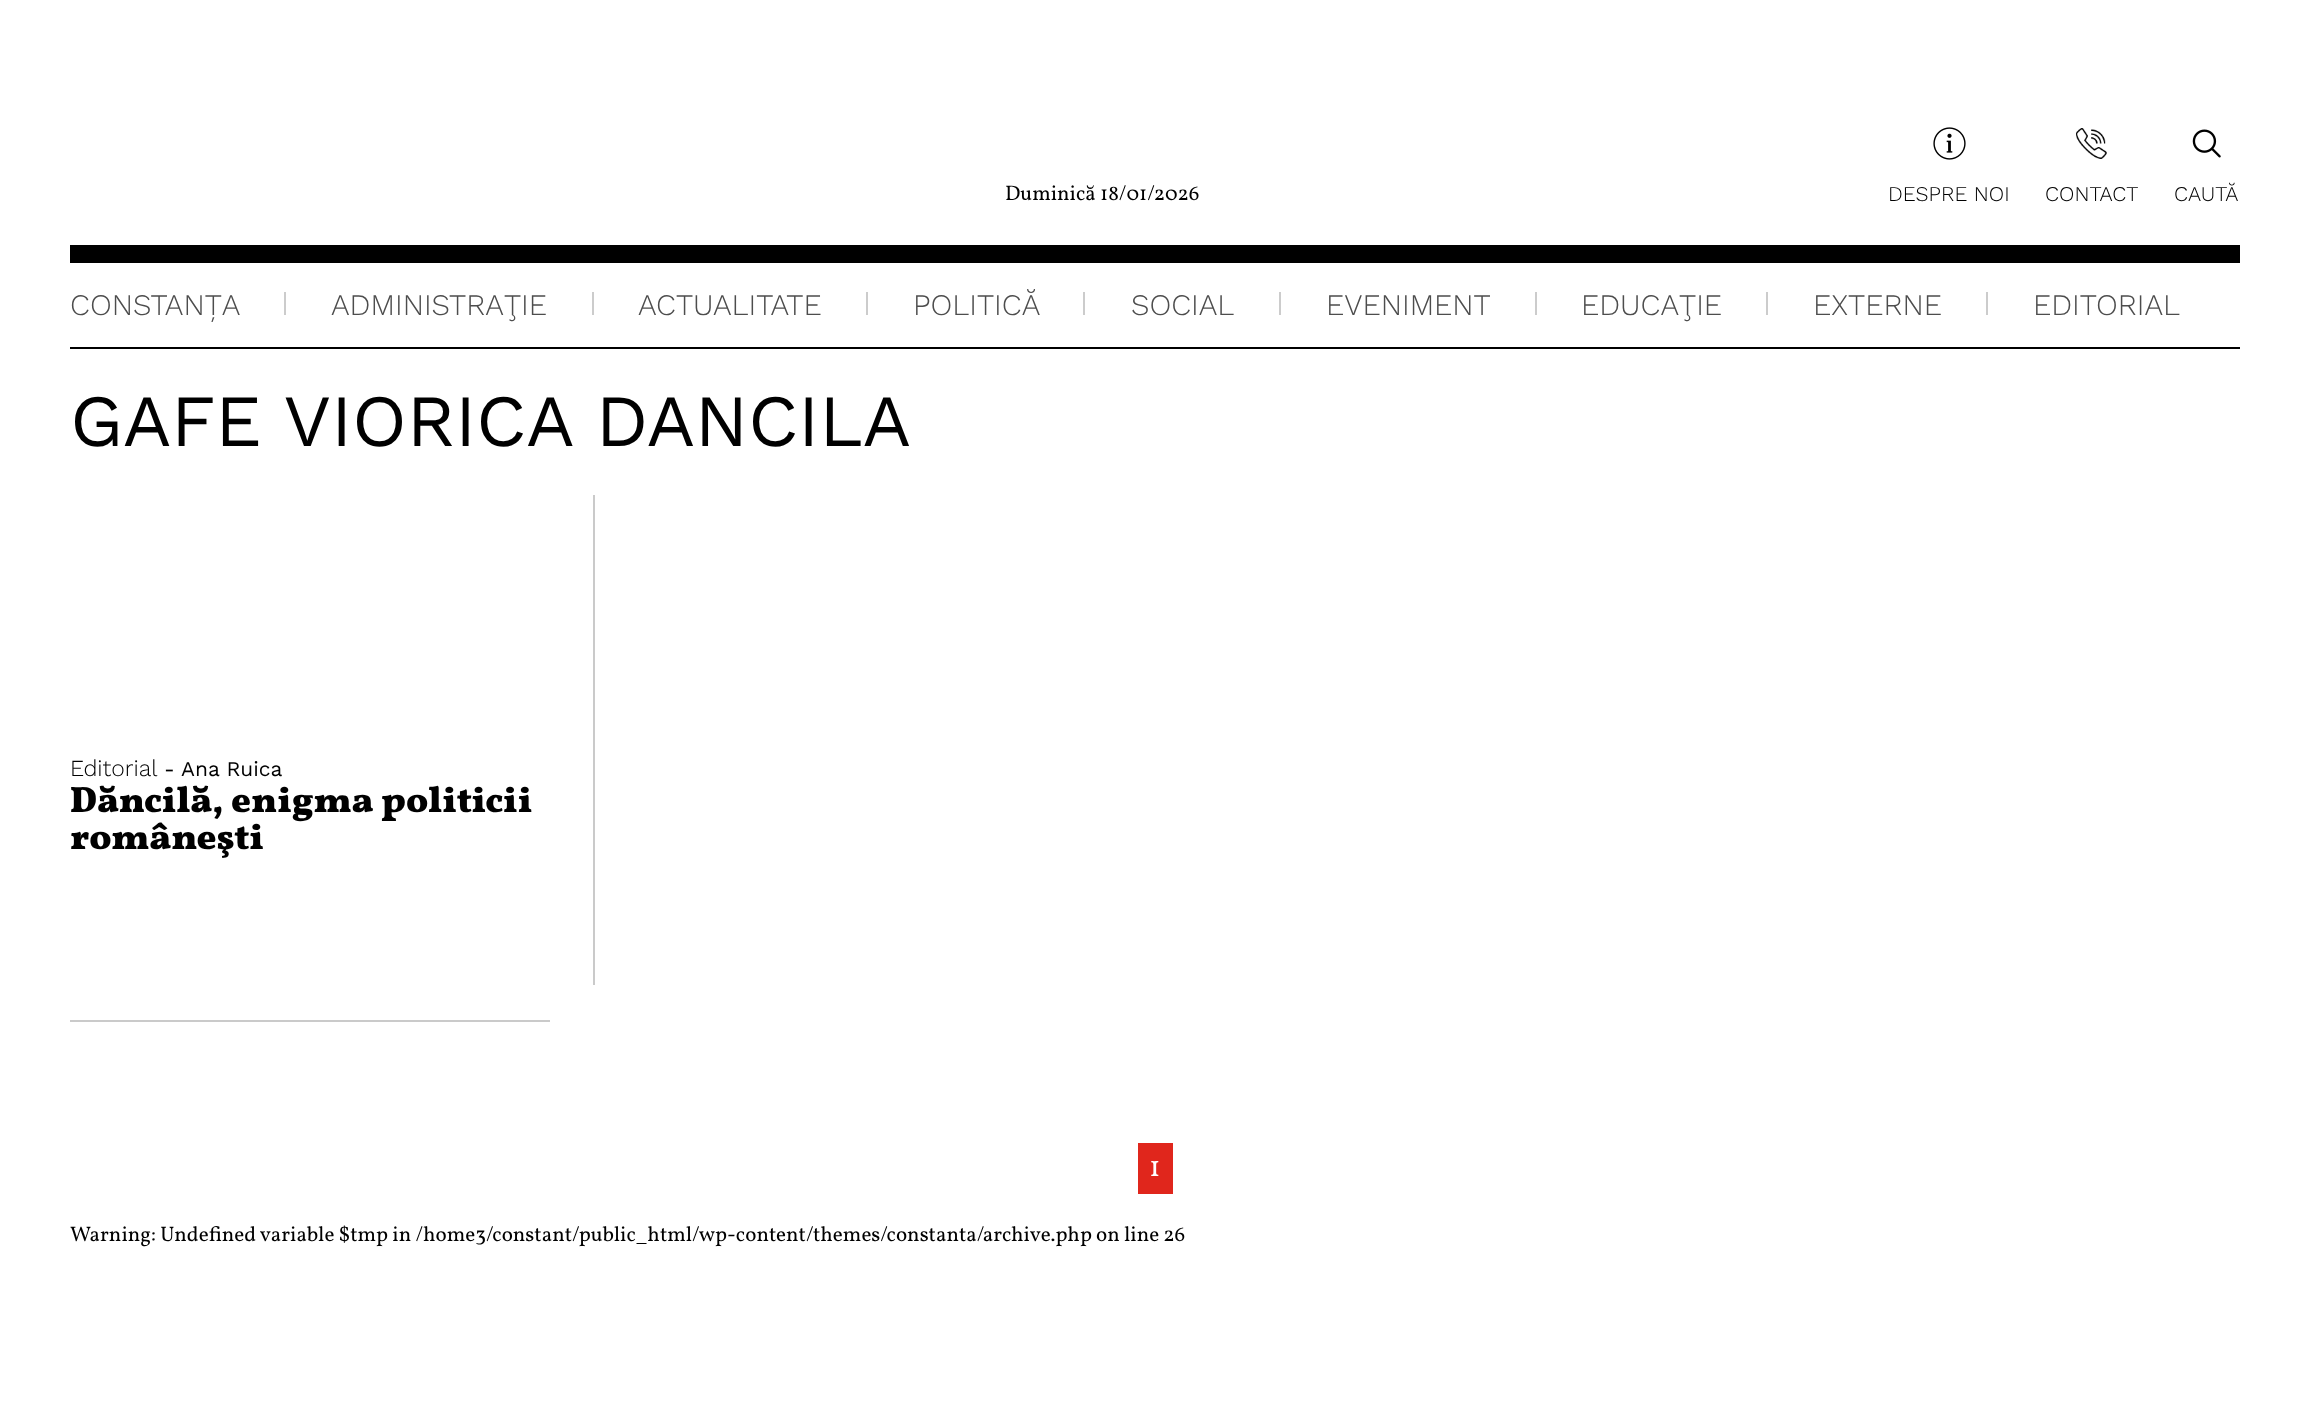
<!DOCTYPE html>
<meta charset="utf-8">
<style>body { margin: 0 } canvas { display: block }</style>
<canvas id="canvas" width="2309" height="1406"></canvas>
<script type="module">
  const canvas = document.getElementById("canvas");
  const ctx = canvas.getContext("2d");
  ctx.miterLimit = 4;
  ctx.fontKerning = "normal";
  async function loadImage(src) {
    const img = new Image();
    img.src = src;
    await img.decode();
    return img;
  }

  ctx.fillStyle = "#ffffff";
  ctx.fillRect(0, 0, 2309, 1406);
  ctx.fillStyle = "#000000";
  ctx.fillRect(70, 245, 2170, 18);
  ctx.font = "21px Vollkorn";
  ctx.fillText("Duminică 18/01/2026", 1005, 200);
  ctx.drawImage(await loadImage("img1.png"), 1933, 127, 33, 33);
  ctx.font = "300 21px Work Sans";
  ctx.fillText("DESPRE NOI", 1888, 201);
  ctx.drawImage(await loadImage("img2.png"), 2076, 128, 31, 31);
  ctx.fillText("CONTACT", 2045, 201);
  ctx.drawImage(await loadImage("img3.png"), 2192, 129, 29, 29);
  ctx.fillText("CAUTĂ", 2174, 201);
  ctx.fillRect(70, 347, 2170, 2);
  ctx.font = "300 29.75px Work Sans";
  ctx.fillStyle = "#4d4d4d";
  ctx.fillText("CONSTANȚA", 70, 315);
  ctx.fillStyle = "#cccccc";
  ctx.fillRect(284, 292, 2, 23);
  ctx.fillStyle = "#4d4d4d";
  ctx.fillText("ADMINISTRAŢIE", 331, 315);
  ctx.fillStyle = "#cccccc";
  ctx.fillRect(592, 292, 2, 23);
  ctx.fillStyle = "#4d4d4d";
  ctx.fillText("ACTUALITATE", 638, 315);
  ctx.fillStyle = "#cccccc";
  ctx.fillRect(866, 292, 2, 23);
  ctx.fillStyle = "#4d4d4d";
  ctx.fillText("POLITICĂ", 913, 315);
  ctx.fillStyle = "#cccccc";
  ctx.fillRect(1083, 292, 2, 23);
  ctx.fillStyle = "#4d4d4d";
  ctx.fillText("SOCIAL", 1131, 315);
  ctx.fillStyle = "#cccccc";
  ctx.fillRect(1279, 292, 2, 23);
  ctx.fillStyle = "#4d4d4d";
  ctx.fillText("EVENIMENT", 1326, 315);
  ctx.fillStyle = "#cccccc";
  ctx.fillRect(1535, 292, 2, 23);
  ctx.fillStyle = "#4d4d4d";
  ctx.fillText("EDUCAŢIE", 1581, 315);
  ctx.fillStyle = "#cccccc";
  ctx.fillRect(1766, 292, 2, 23);
  ctx.fillStyle = "#4d4d4d";
  ctx.fillText("EXTERNE", 1813, 315);
  ctx.fillStyle = "#cccccc";
  ctx.fillRect(1986, 292, 2, 23);
  ctx.fillStyle = "#4d4d4d";
  ctx.fillText("EDITORIAL", 2033, 315);
  ctx.letterSpacing = "-0.5px";
  ctx.font = "73.5px Work Sans";
  ctx.fillStyle = "#000000";
  ctx.fillText("GAFE VIORICA DANCILA", 70, 446);
  ctx.fillStyle = "#cacaca";
  ctx.fillRect(70, 1020, 480, 2);
  ctx.letterSpacing = "0px";
  ctx.font = "300 23px Work Sans";
  ctx.fillStyle = "#000000";
  ctx.fillText("Editorial", 70, 776);
  ctx.font = "21px Work Sans";
  ctx.fillText("- Ana Ruica", 164, 776);
  ctx.font = "900 36.75px Vollkorn";
  ctx.fillText("Dăncilă, enigma politicii", 70, 812);
  ctx.fillText("româneşti", 70, 849);
  ctx.fillStyle = "#cacaca";
  ctx.fillRect(593, 495, 2, 490);
  ctx.fillStyle = "#e0261c";
  ctx.fillRect(1138, 1143, 35, 51);
  ctx.font = "29.75px Vollkorn";
  ctx.fillStyle = "#ffffff";
  ctx.fillText("1", 1149, 1176);
  ctx.font = "21px Vollkorn";
  ctx.fillStyle = "#000000";
  ctx.fillText("Warning: Undefined variable $tmp in /home3/constant/public_html/wp-content/themes/constanta/archive.php on line 26", 70, 1241);
</script>
